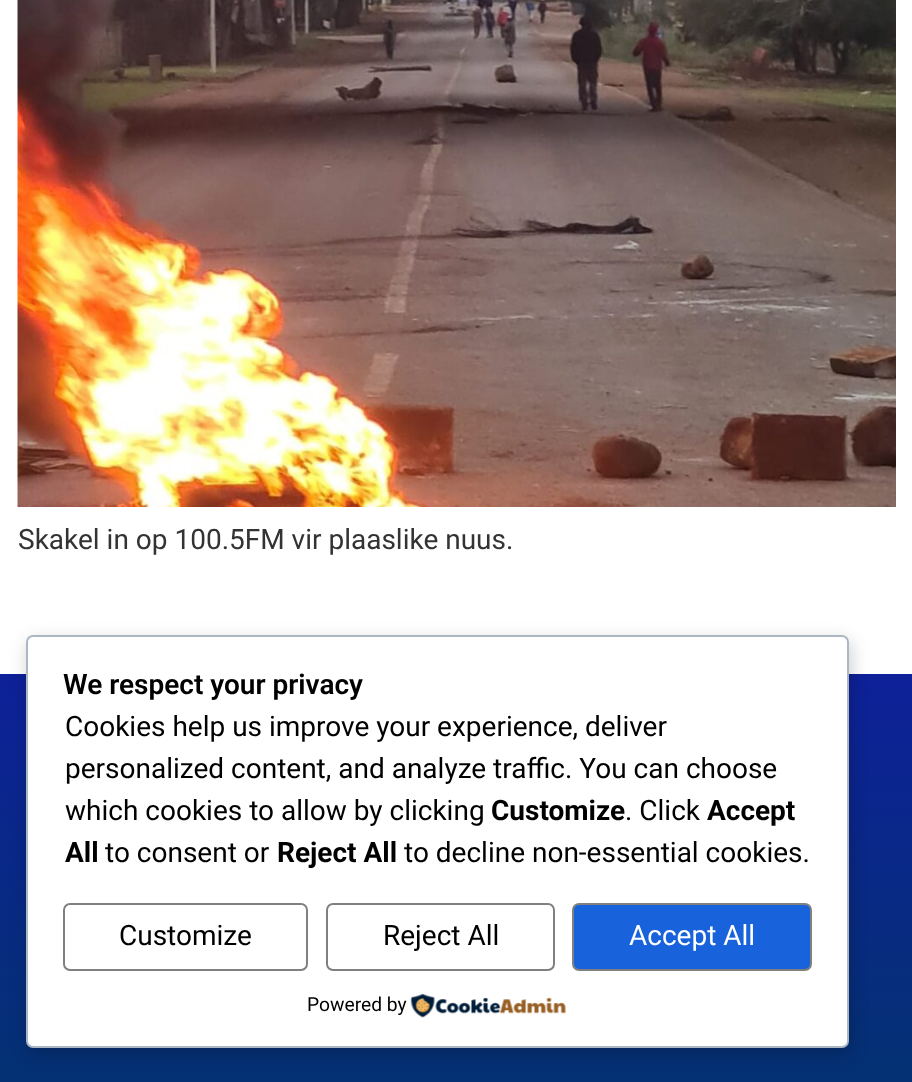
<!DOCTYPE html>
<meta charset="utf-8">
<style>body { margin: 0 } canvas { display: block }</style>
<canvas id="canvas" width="912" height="1082"></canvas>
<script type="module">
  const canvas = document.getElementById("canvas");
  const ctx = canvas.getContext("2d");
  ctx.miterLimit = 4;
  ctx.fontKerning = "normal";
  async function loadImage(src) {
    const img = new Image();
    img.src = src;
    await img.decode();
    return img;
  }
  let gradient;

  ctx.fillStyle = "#ffffff";
  ctx.fillRect(0, 0, 912, 1082);
  ctx.drawImage(await loadImage("img1.png"), 17, 0, 879, 507);
  ctx.font = "28px Roboto";
  ctx.fillStyle = "#333333";
  ctx.fillText("Skakel in op 100.5FM vir plaaslike nuus.", 18, 549);
  gradient = ctx.createLinearGradient(457, 674, 457, 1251);
  gradient.addColorStop(0, "#0e2199");
  gradient.addColorStop(1, "#003863");
  ctx.fillStyle = gradient;
  ctx.fillRect(0, 674, 912, 408);
  ctx.fillStyle = "rgba(0, 0, 0, 0.2)";
  ctx.filter = "blur(9px)";
  ctx.beginPath();
  ctx.roundRect(28, 641, 823, 413, 7);
  ctx.fill();
  ctx.filter = "none";
  ctx.fillStyle = "#ffffff";
  ctx.beginPath();
  ctx.roundRect(27, 636, 821, 411, 6);
  ctx.fill();
  ctx.strokeStyle = "#abb8c3";
  ctx.lineWidth = 2;
  ctx.stroke();
  ctx.font = "600 28px Roboto";
  ctx.fillStyle = "#000000";
  ctx.fillText("We respect your privacy", 63, 694);
  ctx.font = "28px Roboto";
  ctx.fillText("Cookies help us improve your experience, deliver", 65, 736);
  ctx.fillText("personalized content, and analyze traffic. You can choose", 65, 778);
  ctx.fillText("which cookies to allow by clicking", 65, 820);
  ctx.font = "bold 28px Roboto";
  ctx.fillText("Customize", 491, 820);
  ctx.font = "28px Roboto";
  ctx.fillText(". Click", 625, 820);
  ctx.font = "bold 28px Roboto";
  ctx.fillText("Accept", 707, 820);
  ctx.fillText("All", 65, 862);
  ctx.font = "28px Roboto";
  ctx.fillText("to consent or", 105, 862);
  ctx.font = "bold 28px Roboto";
  ctx.fillText("Reject All", 277, 862);
  ctx.font = "28px Roboto";
  ctx.fillText("to decline non-essential cookies.", 404, 862);
  ctx.beginPath();
  ctx.roundRect(64, 904, 243, 66, 6);
  ctx.strokeStyle = "#808080";
  ctx.stroke();
  ctx.fillText("Customize", 119, 945);
  ctx.beginPath();
  ctx.roundRect(327, 904, 227, 66, 6);
  ctx.stroke();
  ctx.fillText("Reject All", 383, 945);
  ctx.fillStyle = "#1863dc";
  ctx.beginPath();
  ctx.roundRect(573, 904, 238, 66, 6);
  ctx.fill();
  ctx.stroke();
  ctx.fillStyle = "#ffffff";
  ctx.fillText("Accept All", 629, 945);
  ctx.font = "19.25px Roboto";
  ctx.fillStyle = "#000000";
  ctx.fillText("Powered by", 307, 1011);
  ctx.drawImage(await loadImage("img2.png"), 410, 993, 156, 25);
</script>
